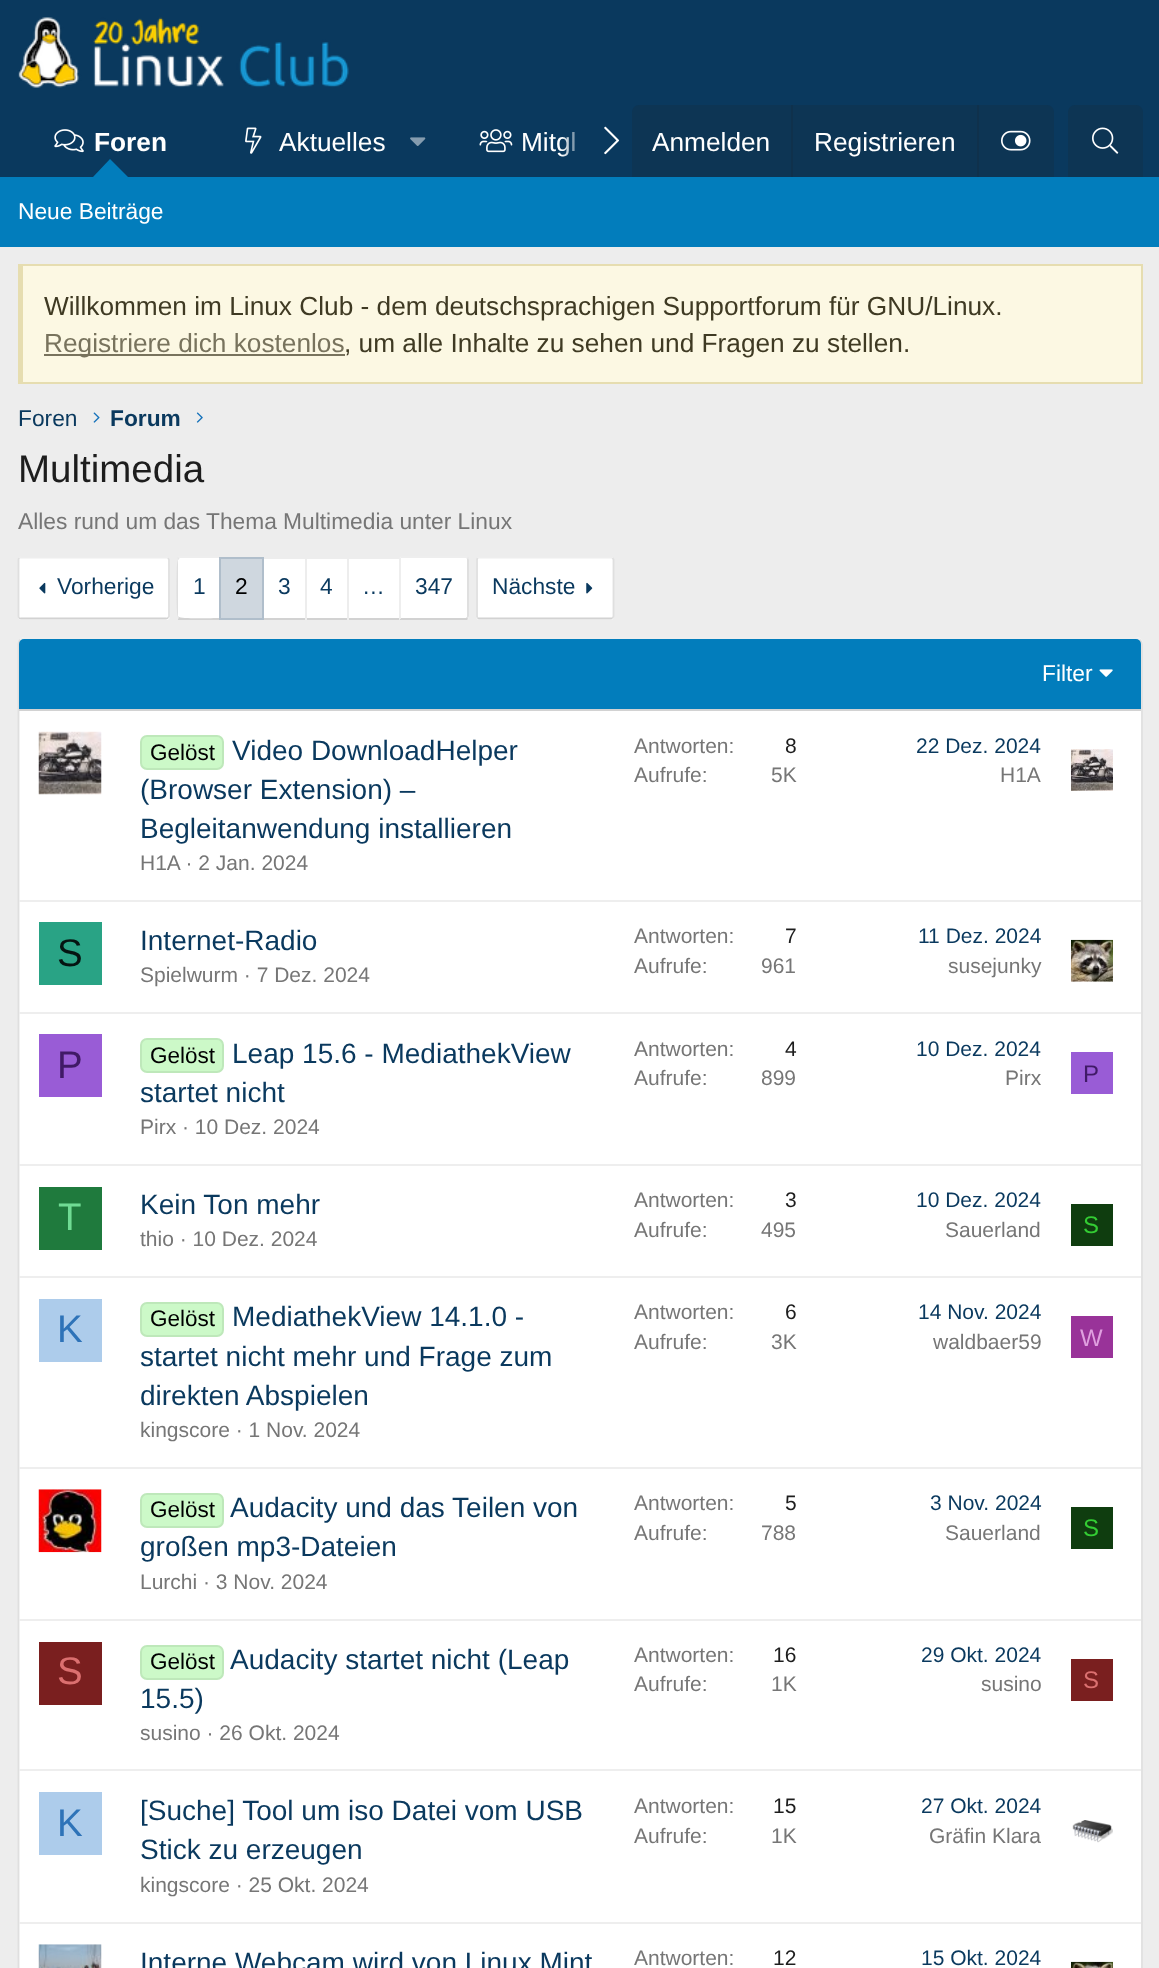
<!DOCTYPE html>
<meta charset="utf-8">
<style>body { margin: 0 } canvas { display: block }</style>
<canvas id="canvas" width="1159" height="1968"></canvas>
<script type="module">
  const canvas = document.getElementById("canvas");
  const ctx = canvas.getContext("2d");
  ctx.miterLimit = 4;
  ctx.fontKerning = "normal";
  async function loadImage(src) {
    const img = new Image();
    img.src = src;
    await img.decode();
    return img;
  }
  let gradient;

  ctx.fillStyle = "#ededed";
  ctx.fillRect(0, 0, 1159, 1968);
  ctx.fillStyle = "#0a395e";
  ctx.fillRect(0, 0, 1159, 177);
  ctx.drawImage(await loadImage("img1.png"), 18, 17, 331, 71);
  ctx.drawImage(await loadImage("img2.png"), 54, 129, 30, 24);
  ctx.font = "bold 26.25px Liberation Sans";
  ctx.fillStyle = "#ffffff";
  ctx.fillText("Foren", 94, 151);
  ctx.fillStyle = "#027dbc";
  ctx.beginPath();
  ctx.moveTo(128, 177);
  ctx.lineTo(93, 177);
  ctx.lineTo(110, 159);
  ctx.closePath();
  ctx.fill();
  ctx.drawImage(await loadImage("img3.png"), 245, 127, 17, 27);
  ctx.font = "26.25px Liberation Sans";
  ctx.fillStyle = "#ffffff";
  ctx.fillText("Aktuelles", 279, 151);
  ctx.drawImage(await loadImage("img4.png"), 410, 137, 16, 9);
  ctx.drawImage(await loadImage("img5.png"), 479, 129, 34, 24);
  ctx.fillText("Mitgl", 521, 151);
  gradient = ctx.createLinearGradient(562, 141, 632, 141);
  gradient.addColorStop(0, "rgba(10, 57, 94, 0)");
  gradient.addColorStop(0.33, "#0a395e");
  ctx.fillStyle = gradient;
  ctx.fillRect(562, 132, 13, 25);
  ctx.drawImage(await loadImage("img6.png"), 604, 126, 16, 29);
  ctx.fillStyle = "#0d3554";
  ctx.beginPath();
  ctx.roundRect(632, 105, 422, 72, [7, 7, 0, 0]);
  ctx.fill();
  ctx.fillStyle = "#ffffff";
  ctx.fillText("Anmelden", 652, 151);
  ctx.fillStyle = "#0f314c";
  ctx.fillRect(791, 105, 2, 72);
  ctx.fillStyle = "#ffffff";
  ctx.fillText("Registrieren", 814, 151);
  ctx.fillStyle = "#0f314c";
  ctx.fillRect(977, 105, 2, 72);
  ctx.drawImage(await loadImage("img7.png"), 1001, 130, 30, 21);
  ctx.fillStyle = "#0d3554";
  ctx.beginPath();
  ctx.roundRect(1068, 105, 75, 72, [7, 7, 0, 0]);
  ctx.fill();
  ctx.drawImage(await loadImage("img8.png"), 1092, 127, 27, 27);
  ctx.fillStyle = "#027dbc";
  ctx.fillRect(0, 177, 1159, 70);
  ctx.font = "22.75px Liberation Sans";
  ctx.fillStyle = "#ffffff";
  ctx.fillText("Neue Beiträge", 18, 219);
  ctx.fillStyle = "#fcf8e3";
  ctx.fillRect(23, 266, 1118, 116);
  ctx.fillStyle = "#e6ddb0";
  ctx.fillRect(18, 264, 1125, 2);
  ctx.fillRect(1141, 264, 2, 119);
  ctx.fillRect(18, 382, 1125, 2);
  ctx.fillRect(18, 264, 5, 119);
  ctx.font = "26.25px Liberation Sans";
  ctx.fillStyle = "#3f3a23";
  ctx.fillText("Willkommen im Linux Club - dem deutschsprachigen Supportforum für GNU/Linux.", 44, 315);
  ctx.fillStyle = "#78735d";
  ctx.fillRect(44, 354, 301, 2);
  ctx.fillText("Registriere dich kostenlos", 44, 352);
  ctx.fillStyle = "#3f3a23";
  ctx.fillText(", um alle Inhalte zu sehen und Fragen zu stellen.", 344, 352);
  ctx.font = "22.75px Liberation Sans";
  ctx.fillStyle = "#0a395e";
  ctx.fillText("Foren", 18, 426);
  ctx.drawImage(await loadImage("img9.png"), 93, 412, 7, 11);
  ctx.font = "bold 22.75px Liberation Sans";
  ctx.fillText("Forum", 110, 426);
  ctx.drawImage(await loadImage("img10.png"), 196, 412, 7, 11);
  ctx.font = "38.5px Liberation Sans";
  ctx.fillStyle = "#1d1d1d";
  ctx.fillText("Multimedia", 18, 482);
  ctx.font = "22.75px Liberation Sans";
  ctx.fillStyle = "#767676";
  ctx.fillText("Alles rund um das Thema Multimedia unter Linux", 18, 529);
  ctx.fillStyle = "#ffffff";
  ctx.beginPath();
  ctx.roundRect(18, 557, 152, 63, 4);
  ctx.fill();
  ctx.beginPath();
  ctx.moveTo(19, 558);
  ctx.lineTo(21, 557.5);
  ctx.lineTo(166, 557.5);
  ctx.lineTo(168, 558);
  ctx.strokeStyle = "#eeeeee";
  ctx.lineWidth = 1.8;
  ctx.stroke();
  ctx.beginPath();
  ctx.moveTo(168, 558);
  ctx.lineTo(169, 559.5);
  ctx.lineTo(169, 616.5);
  ctx.lineTo(168, 618);
  ctx.strokeStyle = "#dfdfdf";
  ctx.stroke();
  ctx.beginPath();
  ctx.moveTo(168, 618);
  ctx.lineTo(166, 618.5);
  ctx.lineTo(21, 618.5);
  ctx.lineTo(19, 618);
  ctx.strokeStyle = "#d2d2d2";
  ctx.stroke();
  ctx.beginPath();
  ctx.moveTo(19, 618);
  ctx.lineTo(18.5, 616.5);
  ctx.lineTo(18.5, 559.5);
  ctx.lineTo(19, 558);
  ctx.strokeStyle = "#dfdfdf";
  ctx.stroke();
  ctx.drawImage(await loadImage("img11.png"), 39, 582, 7, 12);
  ctx.fillStyle = "#0a395e";
  ctx.fillText("Vorherige", 57, 594);
  ctx.fillStyle = "#ffffff";
  ctx.beginPath();
  ctx.roundRect(177, 557, 42, 63, [4, 0, 0, 4]);
  ctx.fill();
  ctx.fillStyle = "#eeeeee";
  ctx.beginPath();
  ctx.moveTo(180, 558);
  ctx.lineTo(179, 559);
  ctx.lineTo(178, 557);
  ctx.lineTo(178, 556);
  ctx.lineTo(219, 556);
  ctx.lineTo(219, 558);
  ctx.closePath();
  ctx.fill();
  ctx.fillStyle = "#d2d2d2";
  ctx.beginPath();
  ctx.moveTo(219, 620);
  ctx.lineTo(178, 620);
  ctx.lineTo(178, 619);
  ctx.lineTo(179, 617);
  ctx.bezierCurveTo(180, 619, 214, 618, 219, 618);
  ctx.closePath();
  ctx.fill();
  ctx.fillStyle = "#dfdfdf";
  ctx.beginPath();
  ctx.moveTo(178, 619);
  ctx.bezierCurveTo(176, 616, 176, 560, 178, 557);
  ctx.lineTo(179, 559);
  ctx.lineTo(178, 560);
  ctx.lineTo(178, 616);
  ctx.lineTo(179, 617);
  ctx.closePath();
  ctx.fill();
  ctx.fillStyle = "#0a395e";
  ctx.fillText("1", 193, 594);
  ctx.fillStyle = "#cfd7df";
  ctx.beginPath();
  ctx.rect(220, 558, 43, 61);
  ctx.fill();
  ctx.strokeStyle = "#b0becb";
  ctx.lineWidth = 2;
  ctx.stroke();
  ctx.fillStyle = "#000000";
  ctx.fillText("2", 235, 594);
  ctx.fillStyle = "#ffffff";
  ctx.fillRect(264, 559, 41, 59);
  ctx.fillStyle = "#d2d2d2";
  ctx.fillRect(264, 618, 135, 2);
  ctx.fillStyle = "#0a395e";
  ctx.fillText("3", 278, 594);
  ctx.fillStyle = "#ffffff";
  ctx.fillRect(307, 559, 40, 59);
  ctx.fillStyle = "#eeeeee";
  ctx.fillRect(305, 618, 2, 2);
  ctx.fillStyle = "#0a395e";
  ctx.fillText("4", 320, 594);
  ctx.fillStyle = "#ffffff";
  ctx.fillRect(349, 559, 50, 59);
  ctx.fillStyle = "#eeeeee";
  ctx.fillRect(347, 618, 2, 2);
  ctx.fillStyle = "#0a395e";
  ctx.fillText("…", 362, 594);
  ctx.fillStyle = "#ffffff";
  ctx.beginPath();
  ctx.roundRect(399, 557, 70, 63, [0, 4, 4, 0]);
  ctx.fill();
  ctx.fillStyle = "#eeeeee";
  ctx.beginPath();
  ctx.moveTo(401, 558);
  ctx.lineTo(399, 556);
  ctx.lineTo(467, 556);
  ctx.lineTo(468, 557);
  ctx.lineTo(467, 559);
  ctx.lineTo(466, 558);
  ctx.closePath();
  ctx.fill();
  ctx.fillStyle = "#dfdfdf";
  ctx.beginPath();
  ctx.moveTo(469, 616);
  ctx.lineTo(469, 560);
  ctx.lineTo(468, 557);
  ctx.lineTo(467, 559);
  ctx.bezierCurveTo(467, 560, 467, 616, 467, 617);
  ctx.lineTo(468, 619);
  ctx.closePath();
  ctx.fill();
  ctx.fillStyle = "#d2d2d2";
  ctx.beginPath();
  ctx.moveTo(467, 620);
  ctx.lineTo(399, 620);
  ctx.lineTo(401, 618);
  ctx.lineTo(466, 618);
  ctx.lineTo(467, 617);
  ctx.lineTo(468, 619);
  ctx.closePath();
  ctx.fill();
  ctx.fillStyle = "#eeeeee";
  ctx.beginPath();
  ctx.moveTo(399, 620);
  ctx.lineTo(401, 618);
  ctx.lineTo(401, 558);
  ctx.lineTo(399, 556);
  ctx.closePath();
  ctx.fill();
  ctx.fillStyle = "#0a395e";
  ctx.fillText("347", 415, 594);
  ctx.fillStyle = "#ffffff";
  ctx.beginPath();
  ctx.roundRect(476, 557, 138, 63, 4);
  ctx.fill();
  ctx.beginPath();
  ctx.moveTo(477.5, 558);
  ctx.lineTo(479, 557.5);
  ctx.lineTo(589, 557.5);
  ctx.lineTo(611, 557.5);
  ctx.lineTo(612.5, 558);
  ctx.strokeStyle = "#eeeeee";
  ctx.lineWidth = 1.8;
  ctx.stroke();
  ctx.beginPath();
  ctx.moveTo(612.5, 558);
  ctx.lineTo(613.5, 559.5);
  ctx.lineTo(613.5, 616.5);
  ctx.lineTo(612.5, 618);
  ctx.strokeStyle = "#dfdfdf";
  ctx.stroke();
  ctx.beginPath();
  ctx.moveTo(612.5, 618);
  ctx.lineTo(611, 618.5);
  ctx.lineTo(479, 618.5);
  ctx.lineTo(477.5, 618);
  ctx.strokeStyle = "#d2d2d2";
  ctx.stroke();
  ctx.beginPath();
  ctx.moveTo(477.5, 618);
  ctx.lineTo(477, 616.5);
  ctx.lineTo(477, 559.5);
  ctx.lineTo(477.5, 558);
  ctx.strokeStyle = "#dfdfdf";
  ctx.stroke();
  ctx.fillStyle = "#0a395e";
  ctx.fillText("Nächste", 492, 594);
  ctx.drawImage(await loadImage("img12.png"), 586, 582, 7, 12);
  ctx.fillStyle = "#ffffff";
  ctx.beginPath();
  ctx.roundRect(18, 637, 1125, 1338, 7);
  ctx.fill();
  ctx.beginPath();
  ctx.moveTo(20, 639.5);
  ctx.bezierCurveTo(21.5, 638.5, 23, 638, 24.5, 638);
  ctx.lineTo(1136, 638);
  ctx.bezierCurveTo(1137.5, 638, 1139, 638.5, 1140, 639.5);
  ctx.strokeStyle = "#eeeeee";
  ctx.stroke();
  ctx.beginPath();
  ctx.moveTo(1140, 639.5);
  ctx.bezierCurveTo(1141, 641, 1142, 642.5, 1142, 644);
  ctx.lineTo(1142, 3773);
  ctx.bezierCurveTo(1142, 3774.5, 1141, 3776, 1140, 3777.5);
  ctx.strokeStyle = "#dfdfdf";
  ctx.stroke();
  ctx.beginPath();
  ctx.moveTo(20, 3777.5);
  ctx.bezierCurveTo(19, 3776, 18.5, 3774.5, 18.5, 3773);
  ctx.lineTo(18.5, 644);
  ctx.bezierCurveTo(18.5, 642.5, 19, 641, 20, 639.5);
  ctx.stroke();
  ctx.fillStyle = "#027dbc";
  ctx.beginPath();
  ctx.roundRect(19, 639, 1122, 72, [5, 5, 0, 0]);
  ctx.fill();
  ctx.fillStyle = "#d2d2d2";
  ctx.fillRect(19, 709, 1122, 2);
  ctx.fillStyle = "#ffffff";
  ctx.fillText("Filter", 1042, 681);
  ctx.drawImage(await loadImage("img13.png"), 1099, 669, 14, 8);
  ctx.drawImage(await loadImage("img14.png"), 38, 731, 64, 64);
  ctx.fillStyle = "#ccf9c8";
  ctx.beginPath();
  ctx.roundRect(141, 736, 82, 33, 6);
  ctx.fill();
  ctx.strokeStyle = "#bee8ba";
  ctx.lineWidth = 2;
  ctx.stroke();
  ctx.font = "22.5px Liberation Sans";
  ctx.fillStyle = "#000000";
  ctx.fillText("Gelöst", 150, 760);
  ctx.font = "28px Liberation Sans";
  ctx.fillStyle = "#0a395e";
  ctx.fillText("Video DownloadHelper", 232, 760);
  ctx.fillText("(Browser Extension) –", 140, 799);
  ctx.fillText("Begleitanwendung installieren", 140, 838);
  ctx.font = "21px Liberation Sans";
  ctx.fillStyle = "#767676";
  ctx.fillText("H1A · 2 Jan. 2024", 140, 870);
  ctx.fillText("Antworten:", 634, 753);
  ctx.fillStyle = "#1d1d1d";
  ctx.fillText("8", 785, 753);
  ctx.fillStyle = "#767676";
  ctx.fillText("Aufrufe:", 634, 782);
  ctx.fillText("5K", 771, 782);
  ctx.fillStyle = "#0a395e";
  ctx.fillText("22 Dez. 2024", 916, 753);
  ctx.fillStyle = "#767676";
  ctx.fillText("H1A", 1000, 782);
  ctx.drawImage(await loadImage("img15.png"), 1071, 749, 42, 42);
  ctx.fillStyle = "#eeeeee";
  ctx.fillRect(19, 900, 1122, 2);
  ctx.fillStyle = "#29a385";
  ctx.fillRect(39, 922, 63, 63);
  ctx.font = "38.5px Liberation Sans";
  ctx.fillStyle = "#051411";
  ctx.fillText("S", 57, 966);
  ctx.font = "28px Liberation Sans";
  ctx.fillStyle = "#0a395e";
  ctx.fillText("Internet-Radio", 140, 950);
  ctx.font = "21px Liberation Sans";
  ctx.fillStyle = "#767676";
  ctx.fillText("Spielwurm · 7 Dez. 2024", 140, 982);
  ctx.fillText("Antworten:", 634, 943);
  ctx.fillStyle = "#1d1d1d";
  ctx.fillText("7", 785, 943);
  ctx.fillStyle = "#767676";
  ctx.fillText("Aufrufe:", 634, 973);
  ctx.fillText("961", 761, 973);
  ctx.fillStyle = "#0a395e";
  ctx.fillText("11 Dez. 2024", 918, 943);
  ctx.fillStyle = "#767676";
  ctx.fillText("susejunky", 948, 973);
  ctx.drawImage(await loadImage("img16.png"), 1071, 939, 42, 43);
  ctx.fillStyle = "#eeeeee";
  ctx.fillRect(19, 1012, 1122, 2);
  ctx.fillStyle = "#995cd6";
  ctx.fillRect(39, 1034, 63, 63);
  ctx.font = "38.5px Liberation Sans";
  ctx.fillStyle = "#401a66";
  ctx.fillText("P", 57, 1078);
  ctx.fillStyle = "#ccf9c8";
  ctx.beginPath();
  ctx.roundRect(141, 1039, 82, 33, 6);
  ctx.fill();
  ctx.stroke();
  ctx.font = "22.5px Liberation Sans";
  ctx.fillStyle = "#000000";
  ctx.fillText("Gelöst", 150, 1063);
  ctx.font = "28px Liberation Sans";
  ctx.fillStyle = "#0a395e";
  ctx.fillText("Leap 15.6 - MediathekView", 232, 1063);
  ctx.fillText("startet nicht", 140, 1102);
  ctx.font = "21px Liberation Sans";
  ctx.fillStyle = "#767676";
  ctx.fillText("Pirx · 10 Dez. 2024", 140, 1134);
  ctx.fillText("Antworten:", 634, 1056);
  ctx.fillStyle = "#1d1d1d";
  ctx.fillText("4", 785, 1056);
  ctx.fillStyle = "#767676";
  ctx.fillText("Aufrufe:", 634, 1085);
  ctx.fillText("899", 761, 1085);
  ctx.fillStyle = "#0a395e";
  ctx.fillText("10 Dez. 2024", 916, 1056);
  ctx.fillStyle = "#767676";
  ctx.fillText("Pirx", 1005, 1085);
  ctx.fillStyle = "#995cd6";
  ctx.fillRect(1071, 1052, 42, 42);
  ctx.font = "24px Liberation Sans";
  ctx.fillStyle = "#401a66";
  ctx.fillText("P", 1083, 1082);
  ctx.fillStyle = "#eeeeee";
  ctx.fillRect(19, 1164, 1122, 2);
  ctx.fillStyle = "#1f7a3d";
  ctx.fillRect(39, 1187, 63, 63);
  ctx.font = "38.5px Liberation Sans";
  ctx.fillStyle = "#70db94";
  ctx.fillText("T", 58, 1230);
  ctx.font = "28px Liberation Sans";
  ctx.fillStyle = "#0a395e";
  ctx.fillText("Kein Ton mehr", 140, 1214);
  ctx.font = "21px Liberation Sans";
  ctx.fillStyle = "#767676";
  ctx.fillText("thio · 10 Dez. 2024", 140, 1246);
  ctx.fillText("Antworten:", 634, 1207);
  ctx.fillStyle = "#1d1d1d";
  ctx.fillText("3", 785, 1207);
  ctx.fillStyle = "#767676";
  ctx.fillText("Aufrufe:", 634, 1237);
  ctx.fillText("495", 761, 1237);
  ctx.fillStyle = "#0a395e";
  ctx.fillText("10 Dez. 2024", 916, 1207);
  ctx.fillStyle = "#767676";
  ctx.fillText("Sauerland", 945, 1237);
  ctx.fillStyle = "#0f3d0f";
  ctx.fillRect(1071, 1204, 42, 42);
  ctx.font = "24px Liberation Sans";
  ctx.fillStyle = "#33cc33";
  ctx.fillText("S", 1083, 1233);
  ctx.fillStyle = "#eeeeee";
  ctx.fillRect(19, 1276, 1122, 2);
  ctx.fillStyle = "#adcceb";
  ctx.fillRect(39, 1299, 63, 63);
  ctx.font = "38.5px Liberation Sans";
  ctx.fillStyle = "#2e73b8";
  ctx.fillText("K", 57, 1342);
  ctx.fillStyle = "#ccf9c8";
  ctx.beginPath();
  ctx.roundRect(141, 1303, 82, 33, 6);
  ctx.fill();
  ctx.stroke();
  ctx.font = "22.5px Liberation Sans";
  ctx.fillStyle = "#000000";
  ctx.fillText("Gelöst", 150, 1326);
  ctx.font = "28px Liberation Sans";
  ctx.fillStyle = "#0a395e";
  ctx.fillText("MediathekView 14.1.0 -", 232, 1326);
  ctx.fillText("startet nicht mehr und Frage zum", 140, 1366);
  ctx.fillText("direkten Abspielen", 140, 1405);
  ctx.font = "21px Liberation Sans";
  ctx.fillStyle = "#767676";
  ctx.fillText("kingscore · 1 Nov. 2024", 140, 1437);
  ctx.fillText("Antworten:", 634, 1319);
  ctx.fillStyle = "#1d1d1d";
  ctx.fillText("6", 785, 1319);
  ctx.fillStyle = "#767676";
  ctx.fillText("Aufrufe:", 634, 1349);
  ctx.fillText("3K", 771, 1349);
  ctx.fillStyle = "#0a395e";
  ctx.fillText("14 Nov. 2024", 918, 1319);
  ctx.fillStyle = "#767676";
  ctx.fillText("waldbaer59", 933, 1349);
  ctx.fillStyle = "#993399";
  ctx.fillRect(1071, 1316, 42, 42);
  ctx.font = "24px Liberation Sans";
  ctx.fillStyle = "#df9fdf";
  ctx.fillText("W", 1080, 1346);
  ctx.fillStyle = "#eeeeee";
  ctx.fillRect(19, 1467, 1122, 2);
  ctx.drawImage(await loadImage("img17.png"), 38, 1489, 64, 64);
  ctx.fillStyle = "#ccf9c8";
  ctx.beginPath();
  ctx.roundRect(141, 1494, 82, 33, 6);
  ctx.fill();
  ctx.stroke();
  ctx.font = "22.5px Liberation Sans";
  ctx.fillStyle = "#000000";
  ctx.fillText("Gelöst", 150, 1517);
  ctx.font = "28px Liberation Sans";
  ctx.fillStyle = "#0a395e";
  ctx.fillText("Audacity und das Teilen von", 230, 1517);
  ctx.fillText("großen mp3-Dateien", 140, 1556);
  ctx.font = "21px Liberation Sans";
  ctx.fillStyle = "#767676";
  ctx.fillText("Lurchi · 3 Nov. 2024", 140, 1589);
  ctx.fillText("Antworten:", 634, 1510);
  ctx.fillStyle = "#1d1d1d";
  ctx.fillText("5", 785, 1510);
  ctx.fillStyle = "#767676";
  ctx.fillText("Aufrufe:", 634, 1540);
  ctx.fillText("788", 761, 1540);
  ctx.fillStyle = "#0a395e";
  ctx.fillText("3 Nov. 2024", 930, 1510);
  ctx.fillStyle = "#767676";
  ctx.fillText("Sauerland", 945, 1540);
  ctx.fillStyle = "#0f3d0f";
  ctx.fillRect(1071, 1507, 42, 42);
  ctx.font = "24px Liberation Sans";
  ctx.fillStyle = "#33cc33";
  ctx.fillText("S", 1083, 1536);
  ctx.fillStyle = "#eeeeee";
  ctx.fillRect(19, 1619, 1122, 2);
  ctx.fillStyle = "#7a1f1f";
  ctx.fillRect(39, 1642, 63, 63);
  ctx.font = "38.5px Liberation Sans";
  ctx.fillStyle = "#db7070";
  ctx.fillText("S", 57, 1684);
  ctx.fillStyle = "#ccf9c8";
  ctx.beginPath();
  ctx.roundRect(141, 1646, 82, 33, 6);
  ctx.fill();
  ctx.stroke();
  ctx.font = "22.5px Liberation Sans";
  ctx.fillStyle = "#000000";
  ctx.fillText("Gelöst", 150, 1669);
  ctx.font = "28px Liberation Sans";
  ctx.fillStyle = "#0a395e";
  ctx.fillText("Audacity startet nicht (Leap", 230, 1669);
  ctx.fillText("15.5)", 140, 1708);
  ctx.font = "21px Liberation Sans";
  ctx.fillStyle = "#767676";
  ctx.fillText("susino · 26 Okt. 2024", 140, 1740);
  ctx.fillText("Antworten:", 634, 1662);
  ctx.fillStyle = "#1d1d1d";
  ctx.fillText("16", 773, 1662);
  ctx.fillStyle = "#767676";
  ctx.fillText("Aufrufe:", 634, 1691);
  ctx.fillText("1K", 771, 1691);
  ctx.fillStyle = "#0a395e";
  ctx.fillText("29 Okt. 2024", 921, 1662);
  ctx.fillStyle = "#767676";
  ctx.fillText("susino", 981, 1691);
  ctx.fillStyle = "#7a1f1f";
  ctx.fillRect(1071, 1659, 42, 42);
  ctx.font = "24px Liberation Sans";
  ctx.fillStyle = "#db7070";
  ctx.fillText("S", 1083, 1688);
  ctx.fillStyle = "#eeeeee";
  ctx.fillRect(19, 1769, 1122, 2);
  ctx.fillStyle = "#adcceb";
  ctx.fillRect(39, 1792, 63, 63);
  ctx.font = "38.5px Liberation Sans";
  ctx.fillStyle = "#2e73b8";
  ctx.fillText("K", 57, 1836);
  ctx.font = "28px Liberation Sans";
  ctx.fillStyle = "#0a395e";
  ctx.fillText("[Suche] Tool um iso Datei vom USB", 140, 1820);
  ctx.fillText("Stick zu erzeugen", 140, 1859);
  ctx.font = "21px Liberation Sans";
  ctx.fillStyle = "#767676";
  ctx.fillText("kingscore · 25 Okt. 2024", 140, 1892);
  ctx.fillText("Antworten:", 634, 1813);
  ctx.fillStyle = "#1d1d1d";
  ctx.fillText("15", 773, 1813);
  ctx.fillStyle = "#767676";
  ctx.fillText("Aufrufe:", 634, 1843);
  ctx.fillText("1K", 771, 1843);
  ctx.fillStyle = "#0a395e";
  ctx.fillText("27 Okt. 2024", 921, 1813);
  ctx.fillStyle = "#767676";
  ctx.fillText("Gräfin Klara", 929, 1843);
  ctx.drawImage(await loadImage("img18.png"), 1072, 1820, 41, 23);
  ctx.fillStyle = "#eeeeee";
  ctx.fillRect(19, 1922, 1122, 2);
  ctx.drawImage(await loadImage("img19.png"), 38, 1944, 64, 24);
  ctx.font = "28px Liberation Sans";
  ctx.fillStyle = "#0a395e";
  ctx.fillText("Interne Webcam wird von Linux Mint", 140, 1972);
  ctx.font = "21px Liberation Sans";
  ctx.fillStyle = "#767676";
  ctx.fillText("Antworten:", 634, 1965);
  ctx.fillStyle = "#1d1d1d";
  ctx.fillText("12", 773, 1965);
  ctx.fillStyle = "#0a395e";
  ctx.fillText("15 Okt. 2024", 921, 1965);
  ctx.drawImage(await loadImage("img20.png"), 1071, 1961, 42, 7);
</script>
